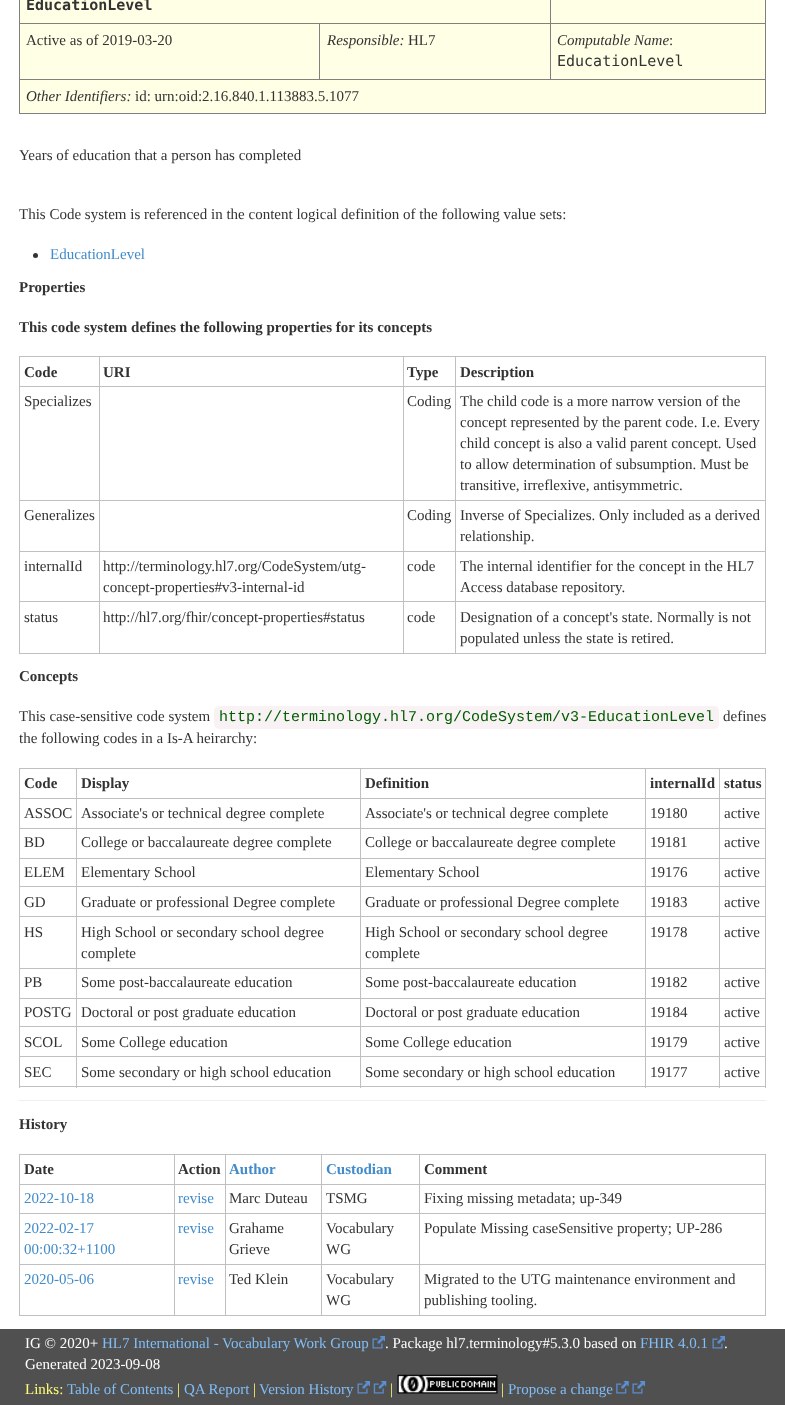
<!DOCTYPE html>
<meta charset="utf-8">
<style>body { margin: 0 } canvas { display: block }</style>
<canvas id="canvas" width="785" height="1405"></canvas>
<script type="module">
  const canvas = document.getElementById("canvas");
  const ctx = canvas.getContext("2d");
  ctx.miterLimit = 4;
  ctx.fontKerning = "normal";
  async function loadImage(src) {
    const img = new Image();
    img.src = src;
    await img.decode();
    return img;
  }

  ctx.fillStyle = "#ffffff";
  ctx.fillRect(0, 0, 785, 1405);
  ctx.fillStyle = "#ffffe6";
  ctx.fillRect(20, 0, 530, 23);
  ctx.font = "bold 15px DejaVu Sans Mono";
  ctx.fillStyle = "#333333";
  ctx.fillText("EducationLevel", 26, 10);
  ctx.fillStyle = "#ffffe6";
  ctx.fillRect(551, 0, 214, 23);
  ctx.fillStyle = "#808080";
  ctx.fillRect(550, 23, 216, 1);
  ctx.fillRect(19, 79, 747, 1);
  ctx.fillRect(550, 23, 1, 57);
  ctx.fillRect(319, 23, 232, 1);
  ctx.fillRect(550, 0, 1, 24);
  ctx.fillStyle = "#ffffe6";
  ctx.fillRect(20, 24, 299, 55);
  ctx.fillStyle = "#808080";
  ctx.fillRect(319, 23, 1, 57);
  ctx.fillRect(19, 23, 301, 1);
  ctx.fillRect(765, 79, 1, 35);
  ctx.fillRect(19, 113, 747, 1);
  ctx.fillRect(19, 79, 1, 35);
  ctx.fillRect(19, 0, 1, 80);
  ctx.font = "15px Liberation Serif";
  ctx.fillStyle = "#333333";
  ctx.fillText("Active as of 2019-03-20", 26, 45);
  ctx.fillStyle = "#ffffe6";
  ctx.fillRect(320, 24, 230, 55);
  ctx.font = "italic 15px Liberation Serif";
  ctx.fillStyle = "#333333";
  ctx.fillText("Responsible:", 327, 45);
  ctx.font = "15px Liberation Serif";
  ctx.fillText("HL7", 408, 45);
  ctx.fillStyle = "#ffffe6";
  ctx.fillRect(551, 24, 214, 55);
  ctx.fillStyle = "#808080";
  ctx.fillRect(765, 0, 1, 80);
  ctx.font = "italic 15px Liberation Serif";
  ctx.fillStyle = "#333333";
  ctx.fillText("Computable Name", 557, 45);
  ctx.font = "15px Liberation Serif";
  ctx.fillText(":", 669, 45);
  ctx.font = "15px DejaVu Sans Mono";
  ctx.fillText("EducationLevel", 557, 66);
  ctx.fillStyle = "#ffffe6";
  ctx.fillRect(20, 80, 745, 33);
  ctx.font = "italic 15px Liberation Serif";
  ctx.fillStyle = "#333333";
  ctx.fillText("Other Identifiers:", 26, 101);
  ctx.font = "15px Liberation Serif";
  ctx.fillText("id: urn:oid:2.16.840.1.113883.5.1077", 135, 101);
  ctx.fillText("Years of education that a person has completed", 19, 160);
  ctx.fillText("This Code system is referenced in the content logical definition of the following value sets:", 19, 219);
  ctx.beginPath();
  ctx.arc(35.5, 255.5, 2.5, 0, Math.PI * 2);
  ctx.fill();
  ctx.fillStyle = "#428bca";
  ctx.fillText("EducationLevel", 50, 259);
  ctx.font = "bold 15px Liberation Serif";
  ctx.fillStyle = "#333333";
  ctx.fillText("Properties", 19, 292);
  ctx.fillText("This code system defines the following properties for its concepts", 19, 332);
  ctx.fillStyle = "#c0c0c0";
  ctx.fillRect(455, 356, 311, 1);
  ctx.fillRect(455, 386, 311, 1);
  ctx.fillRect(455, 500, 311, 1);
  ctx.fillRect(455, 551, 311, 1);
  ctx.fillRect(455, 601, 311, 1);
  ctx.fillRect(765, 601, 1, 53);
  ctx.fillRect(455, 653, 311, 1);
  ctx.fillRect(455, 601, 1, 53);
  ctx.fillRect(403, 601, 53, 1);
  ctx.fillRect(455, 551, 1, 52);
  ctx.fillRect(403, 551, 53, 1);
  ctx.fillRect(455, 500, 1, 53);
  ctx.fillRect(403, 500, 53, 1);
  ctx.fillRect(455, 386, 1, 115);
  ctx.fillRect(403, 386, 53, 1);
  ctx.fillRect(455, 356, 1, 32);
  ctx.fillRect(403, 356, 53, 1);
  ctx.fillRect(403, 653, 53, 1);
  ctx.fillRect(403, 601, 1, 53);
  ctx.fillRect(99, 601, 305, 1);
  ctx.fillRect(403, 551, 1, 52);
  ctx.fillRect(99, 551, 305, 1);
  ctx.fillRect(403, 500, 1, 53);
  ctx.fillRect(99, 500, 305, 1);
  ctx.fillRect(403, 386, 1, 115);
  ctx.fillRect(99, 386, 305, 1);
  ctx.fillRect(403, 356, 1, 32);
  ctx.fillRect(99, 356, 305, 1);
  ctx.fillRect(99, 653, 305, 1);
  ctx.fillRect(99, 601, 1, 53);
  ctx.fillRect(19, 601, 81, 1);
  ctx.fillRect(99, 551, 1, 52);
  ctx.fillRect(19, 551, 81, 1);
  ctx.fillRect(99, 500, 1, 53);
  ctx.fillRect(19, 500, 81, 1);
  ctx.fillRect(99, 386, 1, 115);
  ctx.fillRect(19, 386, 81, 1);
  ctx.fillRect(99, 356, 1, 32);
  ctx.fillRect(19, 356, 81, 1);
  ctx.fillRect(19, 653, 81, 1);
  ctx.fillRect(19, 601, 1, 53);
  ctx.fillRect(19, 551, 1, 52);
  ctx.fillRect(19, 500, 1, 53);
  ctx.fillRect(19, 386, 1, 115);
  ctx.fillRect(19, 356, 1, 32);
  ctx.fillStyle = "#333333";
  ctx.fillText("Code", 24, 377);
  ctx.fillText("URI", 103, 377);
  ctx.fillText("Type", 407, 377);
  ctx.fillStyle = "#c0c0c0";
  ctx.fillRect(765, 551, 1, 52);
  ctx.fillRect(765, 500, 1, 53);
  ctx.fillRect(765, 386, 1, 115);
  ctx.fillRect(765, 356, 1, 32);
  ctx.fillStyle = "#333333";
  ctx.fillText("Description", 460, 377);
  ctx.font = "15px Liberation Serif";
  ctx.fillText("Specializes", 24, 406);
  ctx.fillText("Coding", 407, 406);
  ctx.fillText("The child code is a more narrow version of the", 460, 406);
  ctx.fillText("concept represented by the parent code. I.e. Every", 460, 427);
  ctx.fillText("child concept is also a valid parent concept. Used", 460, 448);
  ctx.fillText("to allow determination of subsumption. Must be", 460, 469);
  ctx.fillText("transitive, irreflexive, antisymmetric.", 460, 490);
  ctx.fillText("Generalizes", 24, 520);
  ctx.fillText("Coding", 407, 520);
  ctx.fillText("Inverse of Specializes. Only included as a derived", 460, 520);
  ctx.fillText("relationship.", 460, 541);
  ctx.fillText("internalId", 24, 571);
  ctx.fillText("http://terminology.hl7.org/CodeSystem/utg-", 103, 571);
  ctx.fillText("concept-properties#v3-internal-id", 103, 592);
  ctx.fillText("code", 407, 571);
  ctx.fillText("The internal identifier for the concept in the HL7", 460, 571);
  ctx.fillText("Access database repository.", 460, 592);
  ctx.fillText("status", 24, 622);
  ctx.fillText("http://hl7.org/fhir/concept-properties#status", 103, 622);
  ctx.fillText("code", 407, 622);
  ctx.fillText("Designation of a concept's state. Normally is not", 460, 622);
  ctx.fillText("populated unless the state is retired.", 460, 643);
  ctx.font = "bold 15px Liberation Serif";
  ctx.fillText("Concepts", 19, 681);
  ctx.font = "15px Liberation Serif";
  ctx.fillText("This case-sensitive code system", 19, 721);
  ctx.fillStyle = "#f9f2f4";
  ctx.beginPath();
  ctx.roundRect(214, 706, 505, 23, 5);
  ctx.fill();
  ctx.font = "15px Liberation Mono";
  ctx.fillStyle = "#005c00";
  ctx.fillText("http://terminology.hl7.org/CodeSystem/v3-EducationLevel", 219, 721);
  ctx.font = "15px Liberation Serif";
  ctx.fillStyle = "#333333";
  ctx.fillText("defines", 723, 721);
  ctx.fillText("the following codes in a Is-A heirarchy:", 19, 743);
  ctx.fillStyle = "#c0c0c0";
  ctx.fillRect(719, 768, 47, 1);
  ctx.fillRect(719, 798, 47, 1);
  ctx.fillRect(719, 828, 47, 1);
  ctx.fillRect(719, 858, 47, 1);
  ctx.fillRect(719, 886, 47, 1);
  ctx.fillRect(719, 916, 47, 1);
  ctx.fillRect(719, 968, 47, 1);
  ctx.fillRect(719, 998, 47, 1);
  ctx.fillRect(719, 1026, 47, 1);
  ctx.fillRect(719, 1056, 47, 1);
  ctx.fillRect(765, 1056, 1, 32);
  ctx.fillRect(719, 1086, 47, 1);
  ctx.fillRect(719, 1056, 1, 32);
  ctx.fillRect(645, 1056, 75, 1);
  ctx.fillRect(719, 1026, 1, 32);
  ctx.fillRect(645, 1026, 75, 1);
  ctx.fillRect(719, 998, 1, 30);
  ctx.fillRect(645, 998, 75, 1);
  ctx.fillRect(719, 968, 1, 31);
  ctx.fillRect(645, 968, 75, 1);
  ctx.fillRect(719, 916, 1, 53);
  ctx.fillRect(645, 916, 75, 1);
  ctx.fillRect(719, 886, 1, 32);
  ctx.fillRect(645, 886, 75, 1);
  ctx.fillRect(719, 858, 1, 30);
  ctx.fillRect(645, 858, 75, 1);
  ctx.fillRect(719, 828, 1, 31);
  ctx.fillRect(645, 828, 75, 1);
  ctx.fillRect(719, 798, 1, 31);
  ctx.fillRect(645, 798, 75, 1);
  ctx.fillRect(719, 768, 1, 31);
  ctx.fillRect(645, 768, 75, 1);
  ctx.fillRect(645, 1086, 75, 1);
  ctx.fillRect(645, 1056, 1, 32);
  ctx.fillRect(360, 1056, 286, 1);
  ctx.fillRect(645, 1026, 1, 32);
  ctx.fillRect(360, 1026, 286, 1);
  ctx.fillRect(645, 998, 1, 30);
  ctx.fillRect(360, 998, 286, 1);
  ctx.fillRect(645, 968, 1, 31);
  ctx.fillRect(360, 968, 286, 1);
  ctx.fillRect(645, 916, 1, 53);
  ctx.fillRect(360, 916, 286, 1);
  ctx.fillRect(645, 886, 1, 32);
  ctx.fillRect(360, 886, 286, 1);
  ctx.fillRect(645, 858, 1, 30);
  ctx.fillRect(360, 858, 286, 1);
  ctx.fillRect(645, 828, 1, 31);
  ctx.fillRect(360, 828, 286, 1);
  ctx.fillRect(645, 798, 1, 31);
  ctx.fillRect(360, 798, 286, 1);
  ctx.fillRect(645, 768, 1, 31);
  ctx.fillRect(360, 768, 286, 1);
  ctx.fillRect(360, 1086, 286, 1);
  ctx.fillRect(360, 1056, 1, 32);
  ctx.fillRect(76, 1056, 285, 1);
  ctx.fillRect(360, 1026, 1, 32);
  ctx.fillRect(76, 1026, 285, 1);
  ctx.fillRect(360, 998, 1, 30);
  ctx.fillRect(76, 998, 285, 1);
  ctx.fillRect(360, 968, 1, 31);
  ctx.fillRect(76, 968, 285, 1);
  ctx.fillRect(360, 916, 1, 53);
  ctx.fillRect(76, 916, 285, 1);
  ctx.fillRect(360, 886, 1, 32);
  ctx.fillRect(76, 886, 285, 1);
  ctx.fillRect(360, 858, 1, 30);
  ctx.fillRect(76, 858, 285, 1);
  ctx.fillRect(360, 828, 1, 31);
  ctx.fillRect(76, 828, 285, 1);
  ctx.fillRect(360, 798, 1, 31);
  ctx.fillRect(76, 798, 285, 1);
  ctx.fillRect(360, 768, 1, 31);
  ctx.fillRect(76, 768, 285, 1);
  ctx.fillRect(76, 1086, 285, 1);
  ctx.fillRect(76, 1056, 1, 32);
  ctx.fillRect(19, 1056, 59, 1);
  ctx.fillRect(76, 1026, 1, 32);
  ctx.fillRect(19, 1026, 59, 1);
  ctx.fillRect(76, 998, 1, 30);
  ctx.fillRect(19, 998, 59, 1);
  ctx.fillRect(76, 968, 1, 31);
  ctx.fillRect(19, 968, 59, 1);
  ctx.fillRect(76, 916, 1, 53);
  ctx.fillRect(19, 916, 59, 1);
  ctx.fillRect(76, 886, 1, 32);
  ctx.fillRect(19, 886, 59, 1);
  ctx.fillRect(76, 858, 1, 30);
  ctx.fillRect(19, 858, 59, 1);
  ctx.fillRect(76, 828, 1, 31);
  ctx.fillRect(19, 828, 59, 1);
  ctx.fillRect(76, 798, 1, 31);
  ctx.fillRect(19, 798, 59, 1);
  ctx.fillRect(76, 768, 1, 31);
  ctx.fillRect(19, 768, 59, 1);
  ctx.fillRect(19, 1086, 59, 1);
  ctx.fillRect(19, 1056, 1, 32);
  ctx.fillRect(19, 1026, 1, 32);
  ctx.fillRect(19, 998, 1, 30);
  ctx.fillRect(19, 968, 1, 31);
  ctx.fillRect(19, 916, 1, 53);
  ctx.fillRect(19, 886, 1, 32);
  ctx.fillRect(19, 858, 1, 30);
  ctx.fillRect(19, 828, 1, 31);
  ctx.fillRect(19, 798, 1, 31);
  ctx.fillRect(19, 768, 1, 31);
  ctx.font = "bold 15px Liberation Serif";
  ctx.fillStyle = "#333333";
  ctx.fillText("Code", 24, 788);
  ctx.fillText("Display", 81, 788);
  ctx.fillText("Definition", 365, 788);
  ctx.fillText("internalId", 650, 788);
  ctx.fillStyle = "#c0c0c0";
  ctx.fillRect(765, 1026, 1, 32);
  ctx.fillRect(765, 998, 1, 30);
  ctx.fillRect(765, 968, 1, 31);
  ctx.fillRect(765, 916, 1, 53);
  ctx.fillRect(765, 886, 1, 32);
  ctx.fillRect(765, 858, 1, 30);
  ctx.fillRect(765, 828, 1, 31);
  ctx.fillRect(765, 798, 1, 31);
  ctx.fillRect(765, 768, 1, 31);
  ctx.fillStyle = "#333333";
  ctx.fillText("status", 724, 788);
  ctx.font = "15px Liberation Serif";
  ctx.fillText("ASSOC", 24, 818);
  ctx.fillText("Associate's or technical degree complete", 81, 818);
  ctx.fillText("Associate's or technical degree complete", 365, 818);
  ctx.fillText("19180", 650, 818);
  ctx.fillText("active", 724, 818);
  ctx.fillText("BD", 24, 847);
  ctx.fillText("College or baccalaureate degree complete", 81, 847);
  ctx.fillText("College or baccalaureate degree complete", 365, 847);
  ctx.fillText("19181", 650, 847);
  ctx.fillText("active", 724, 847);
  ctx.fillText("ELEM", 24, 877);
  ctx.fillText("Elementary School", 81, 877);
  ctx.fillText("Elementary School", 365, 877);
  ctx.fillText("19176", 650, 877);
  ctx.fillText("active", 724, 877);
  ctx.fillText("GD", 24, 907);
  ctx.fillText("Graduate or professional Degree complete", 81, 907);
  ctx.fillText("Graduate or professional Degree complete", 365, 907);
  ctx.fillText("19183", 650, 907);
  ctx.fillText("active", 724, 907);
  ctx.fillText("HS", 24, 937);
  ctx.fillText("High School or secondary school degree", 81, 937);
  ctx.fillText("complete", 81, 958);
  ctx.fillText("High School or secondary school degree", 365, 937);
  ctx.fillText("complete", 365, 958);
  ctx.fillText("19178", 650, 937);
  ctx.fillText("active", 724, 937);
  ctx.fillText("PB", 24, 987);
  ctx.fillText("Some post-baccalaureate education", 81, 987);
  ctx.fillText("Some post-baccalaureate education", 365, 987);
  ctx.fillText("19182", 650, 987);
  ctx.fillText("active", 724, 987);
  ctx.fillText("POSTG", 24, 1017);
  ctx.fillText("Doctoral or post graduate education", 81, 1017);
  ctx.fillText("Doctoral or post graduate education", 365, 1017);
  ctx.fillText("19184", 650, 1017);
  ctx.fillText("active", 724, 1017);
  ctx.fillText("SCOL", 24, 1047);
  ctx.fillText("Some College education", 81, 1047);
  ctx.fillText("Some College education", 365, 1047);
  ctx.fillText("19179", 650, 1047);
  ctx.fillText("active", 724, 1047);
  ctx.fillText("SEC", 24, 1077);
  ctx.fillText("Some secondary or high school education", 81, 1077);
  ctx.fillText("Some secondary or high school education", 365, 1077);
  ctx.fillText("19177", 650, 1077);
  ctx.fillText("active", 724, 1077);
  ctx.fillStyle = "#eeeeee";
  ctx.fillRect(19, 1100, 747, 1);
  ctx.font = "bold 15px Liberation Serif";
  ctx.fillStyle = "#333333";
  ctx.fillText("History", 19, 1129);
  ctx.fillStyle = "#c0c0c0";
  ctx.fillRect(419, 1154, 347, 1);
  ctx.fillRect(419, 1184, 347, 1);
  ctx.fillRect(419, 1213, 347, 1);
  ctx.fillRect(419, 1264, 347, 1);
  ctx.fillRect(765, 1264, 1, 52);
  ctx.fillRect(419, 1315, 347, 1);
  ctx.fillRect(419, 1264, 1, 52);
  ctx.fillRect(321, 1264, 99, 1);
  ctx.fillRect(419, 1213, 1, 52);
  ctx.fillRect(321, 1213, 99, 1);
  ctx.fillRect(419, 1184, 1, 30);
  ctx.fillRect(321, 1184, 99, 1);
  ctx.fillRect(419, 1154, 1, 31);
  ctx.fillRect(321, 1154, 99, 1);
  ctx.fillRect(321, 1315, 99, 1);
  ctx.fillRect(321, 1264, 1, 52);
  ctx.fillRect(225, 1264, 98, 1);
  ctx.fillRect(321, 1213, 1, 52);
  ctx.fillRect(225, 1213, 98, 1);
  ctx.fillRect(321, 1184, 1, 30);
  ctx.fillRect(225, 1184, 98, 1);
  ctx.fillRect(321, 1154, 1, 31);
  ctx.fillRect(225, 1154, 98, 1);
  ctx.fillRect(225, 1315, 98, 1);
  ctx.fillRect(225, 1264, 1, 52);
  ctx.fillRect(174, 1264, 52, 1);
  ctx.fillRect(225, 1213, 1, 52);
  ctx.fillRect(174, 1213, 52, 1);
  ctx.fillRect(225, 1184, 1, 30);
  ctx.fillRect(174, 1184, 52, 1);
  ctx.fillRect(225, 1154, 1, 31);
  ctx.fillRect(174, 1154, 52, 1);
  ctx.fillRect(174, 1315, 52, 1);
  ctx.fillRect(174, 1264, 1, 52);
  ctx.fillRect(19, 1264, 156, 1);
  ctx.fillRect(174, 1213, 1, 52);
  ctx.fillRect(19, 1213, 156, 1);
  ctx.fillRect(174, 1184, 1, 30);
  ctx.fillRect(19, 1184, 156, 1);
  ctx.fillRect(174, 1154, 1, 31);
  ctx.fillRect(19, 1154, 156, 1);
  ctx.fillRect(19, 1315, 156, 1);
  ctx.fillRect(19, 1264, 1, 52);
  ctx.fillRect(19, 1213, 1, 52);
  ctx.fillRect(19, 1184, 1, 30);
  ctx.fillRect(19, 1154, 1, 31);
  ctx.fillStyle = "#333333";
  ctx.fillText("Date", 24, 1174);
  ctx.fillText("Action", 178, 1174);
  ctx.fillStyle = "#428bca";
  ctx.fillText("Author", 229, 1174);
  ctx.fillText("Custodian", 326, 1174);
  ctx.fillStyle = "#c0c0c0";
  ctx.fillRect(765, 1213, 1, 52);
  ctx.fillRect(765, 1184, 1, 30);
  ctx.fillRect(765, 1154, 1, 31);
  ctx.fillStyle = "#333333";
  ctx.fillText("Comment", 424, 1174);
  ctx.font = "15px Liberation Serif";
  ctx.fillStyle = "#428bca";
  ctx.fillText("2022-10-18", 24, 1203);
  ctx.fillText("revise", 178, 1203);
  ctx.fillStyle = "#333333";
  ctx.fillText("Marc Duteau", 229, 1203);
  ctx.fillText("TSMG", 326, 1203);
  ctx.fillText("Fixing missing metadata; up-349", 424, 1203);
  ctx.fillStyle = "#428bca";
  ctx.fillText("2022-02-17", 24, 1233);
  ctx.fillText("00:00:32+1100", 24, 1254);
  ctx.fillText("revise", 178, 1233);
  ctx.fillStyle = "#333333";
  ctx.fillText("Grahame", 229, 1233);
  ctx.fillText("Grieve", 229, 1254);
  ctx.fillText("Vocabulary", 326, 1233);
  ctx.fillText("WG", 326, 1254);
  ctx.fillText("Populate Missing caseSensitive property; UP-286", 424, 1233);
  ctx.fillStyle = "#428bca";
  ctx.fillText("2020-05-06", 24, 1284);
  ctx.fillText("revise", 178, 1284);
  ctx.fillStyle = "#333333";
  ctx.fillText("Ted Klein", 229, 1284);
  ctx.fillText("Vocabulary", 326, 1284);
  ctx.fillText("WG", 326, 1305);
  ctx.fillText("Migrated to the UTG maintenance environment and", 424, 1284);
  ctx.fillText("publishing tooling.", 424, 1305);
  ctx.fillStyle = "#505050";
  ctx.fillRect(0, 1329, 785, 76);
  ctx.fillStyle = "#ffffff";
  ctx.fillText("IG © 2020+", 25, 1348);
  ctx.fillStyle = "#81bef7";
  ctx.fillText("HL7 International - Vocabulary Work Group", 102, 1348);
  ctx.drawImage(await loadImage("img1.png"), 372, 1336, 13, 13);
  ctx.fillStyle = "#ffffff";
  ctx.fillText(". Package hl7.terminology#5.3.0 based on", 385, 1348);
  ctx.fillStyle = "#81bef7";
  ctx.fillText("FHIR 4.0.1", 640, 1348);
  ctx.drawImage(await loadImage("img2.png"), 712, 1336, 13, 13);
  ctx.fillStyle = "#ffffff";
  ctx.fillText(".", 724, 1348);
  ctx.fillText("Generated 2023-09-08", 25, 1369);
  ctx.fillStyle = "#ffff77";
  ctx.fillText("Links:", 25, 1394);
  ctx.fillStyle = "#81bef7";
  ctx.fillText("Table of Contents", 67, 1394);
  ctx.fillStyle = "#ffff77";
  ctx.fillText("|", 177, 1394);
  ctx.fillStyle = "#81bef7";
  ctx.fillText("QA Report", 184, 1394);
  ctx.fillStyle = "#ffff77";
  ctx.fillText("|", 253, 1394);
  ctx.fillStyle = "#81bef7";
  ctx.fillText("Version History", 259, 1394);
  ctx.drawImage(await loadImage("img1.png"), 357, 1381, 13, 13);
  ctx.drawImage(await loadImage("img3.png"), 373, 1381, 14, 13);
  ctx.fillStyle = "#ffff77";
  ctx.fillText("|", 390, 1394);
  ctx.drawImage(await loadImage("img4.png"), 397, 1374, 101, 20);
  ctx.fillText("|", 501, 1394);
  ctx.fillStyle = "#81bef7";
  ctx.fillText("Propose a change", 508, 1394);
  ctx.drawImage(await loadImage("img5.png"), 616, 1381, 13, 13);
  ctx.drawImage(await loadImage("img2.png"), 632, 1381, 13, 13);
</script>
